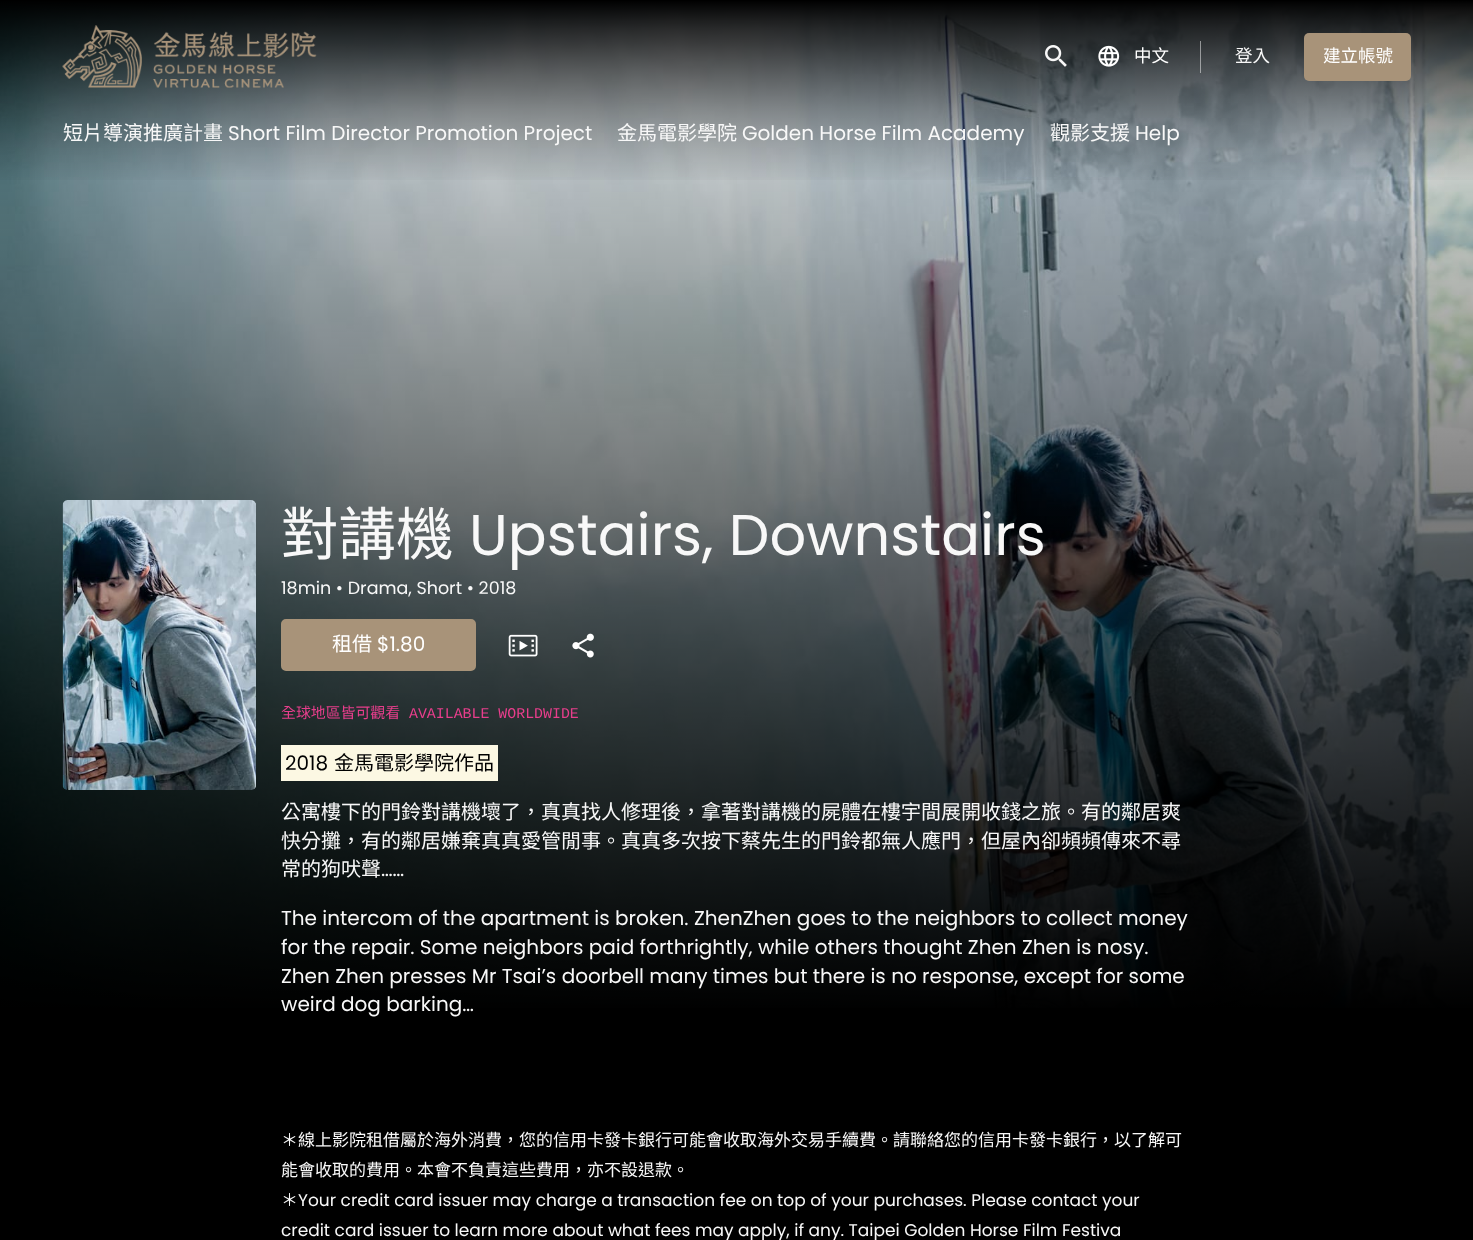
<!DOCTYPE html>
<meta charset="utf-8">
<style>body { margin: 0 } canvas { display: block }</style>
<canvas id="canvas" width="1473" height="1240"></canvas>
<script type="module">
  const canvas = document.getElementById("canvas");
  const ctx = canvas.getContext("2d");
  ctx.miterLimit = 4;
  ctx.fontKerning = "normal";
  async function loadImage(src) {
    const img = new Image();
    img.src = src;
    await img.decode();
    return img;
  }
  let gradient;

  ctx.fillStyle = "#000000";
  ctx.fillRect(0, 0, 1473, 1240);
  ctx.drawImage(await loadImage("img4.png"), 0, 1, 1473, 1007);
  gradient = ctx.createLinearGradient(737, 0, 737, 1014);
  gradient.addColorStop(0, "rgba(0, 0, 0, 0)");
  gradient.addColorStop(1, "#000000");
  ctx.fillStyle = gradient;
  ctx.fillRect(0, 22, 1473, 986);
  gradient = ctx.createLinearGradient(737, 0, 737, 190);
  gradient.addColorStop(0, "#000000");
  gradient.addColorStop(0.01, "rgba(0, 0, 0, 0.99)");
  gradient.addColorStop(0.04, "rgba(0, 0, 0, 0.95)");
  gradient.addColorStop(0.09, "rgba(0, 0, 0, 0.89)");
  gradient.addColorStop(0.15, "rgba(0, 0, 0, 0.82)");
  gradient.addColorStop(0.23, "rgba(0, 0, 0, 0.74)");
  gradient.addColorStop(0.31, "rgba(0, 0, 0, 0.65)");
  gradient.addColorStop(0.4, "rgba(0, 0, 0, 0.55)");
  gradient.addColorStop(0.49, "rgba(0, 0, 0, 0.45)");
  gradient.addColorStop(0.58, "rgba(0, 0, 0, 0.35)");
  gradient.addColorStop(0.67, "rgba(0, 0, 0, 0.26)");
  gradient.addColorStop(0.76, "rgba(0, 0, 0, 0.18)");
  gradient.addColorStop(0.84, "rgba(0, 0, 0, 0.11)");
  gradient.addColorStop(0.91, "rgba(0, 0, 0, 0.05)");
  gradient.addColorStop(0.96, "rgba(0, 0, 0, 0.01)");
  gradient.addColorStop(1, "rgba(0, 0, 0, 0)");
  ctx.fillStyle = gradient;
  ctx.fillRect(0, 1, 1473, 179);
  ctx.drawImage(await loadImage("img1.png"), 62, 25, 255, 63);
  ctx.drawImage(await loadImage("img2.png"), 1045, 45, 22, 22);
  ctx.drawImage(await loadImage("img3.png"), 1098, 45, 22, 22);
  ctx.font = "17.5px Noto Sans CJK TC";
  ctx.fillStyle = "#ffffff";
  ctx.fillText("中文", 1134, 62);
  ctx.fillStyle = "rgba(248, 248, 248, 0.5)";
  ctx.fillRect(1200, 41, 1, 32);
  ctx.fillStyle = "#f8f8f8";
  ctx.fillText("登入", 1235, 62);
  ctx.fillStyle = "#a89379";
  ctx.beginPath();
  ctx.roundRect(1304, 33, 107, 48, 5);
  ctx.fill();
  ctx.fillStyle = "#ffffff";
  ctx.fillText("建立帳號", 1323, 62);
  ctx.font = "20px Noto Sans CJK TC";
  ctx.fillStyle = "#f8f8f8";
  ctx.fillText("短片導演推廣計畫", 63, 140);
  ctx.font = "20px Poppins";
  ctx.fillText("Short Film Director Promotion Project", 228, 140);
  ctx.font = "20px Noto Sans CJK TC";
  ctx.fillText("金馬電影學院", 617, 140);
  ctx.font = "20px Poppins";
  ctx.fillText("Golden Horse Film Academy", 742, 140);
  ctx.font = "20px Noto Sans CJK TC";
  ctx.fillText("觀影支援", 1050, 140);
  ctx.font = "20px Poppins";
  ctx.fillText("Help", 1135, 140);
  ctx.drawImage(await loadImage("img5.png"), 62, 500, 194, 290);
  ctx.font = "57.5px Noto Sans CJK TC";
  ctx.fillText("對講機", 281, 555);
  ctx.font = "57.5px Poppins";
  ctx.fillText("Upstairs, Downstairs", 469, 555);
  ctx.font = "17.5px Poppins";
  ctx.fillText("18min • Drama, Short • 2018", 281, 594);
  ctx.fillStyle = "#a89379";
  ctx.beginPath();
  ctx.roundRect(283, 621, 191, 48, 3);
  ctx.fill();
  ctx.strokeStyle = "#a89379";
  ctx.lineWidth = 4;
  ctx.stroke();
  ctx.font = "20px Noto Sans CJK TC";
  ctx.fillStyle = "#ffffff";
  ctx.fillText("租借", 332, 651);
  ctx.font = "20px Poppins";
  ctx.fillText("$1.80", 377, 651);
  ctx.drawImage(await loadImage("img6.png"), 508, 634, 30, 23);
  ctx.drawImage(await loadImage("img7.png"), 572, 633, 22, 25);
  ctx.font = "14.9px Noto Sans CJK TC";
  ctx.fillStyle = "#e83e8c";
  ctx.fillText("全球地區皆可觀看", 281, 718);
  ctx.font = "14.9px Liberation Mono";
  ctx.fillText("AVAILABLE WORLDWIDE", 409, 718);
  ctx.fillStyle = "#fcf8e3";
  ctx.fillRect(281, 745, 217, 36);
  ctx.font = "20px Poppins";
  ctx.fillStyle = "#000000";
  ctx.fillText("2018", 285, 770);
  ctx.font = "20px Noto Sans CJK TC";
  ctx.fillText("金馬電影學院作品", 334, 770);
  ctx.fillStyle = "#f8f8f8";
  ctx.fillText("公寓樓下的門鈴對講機壞了，真真找人修理後，拿著對講機的屍體在樓宇間展開收錢之旅。有的鄰居爽", 281, 819);
  ctx.fillText("快分攤，有的鄰居嫌棄真真愛管閒事。真真多次按下蔡先生的門鈴都無人應門，但屋內卻頻頻傳來不尋", 281, 848);
  ctx.fillText("常的狗吠聲", 281, 876);
  ctx.font = "20px Poppins";
  ctx.fillText("……", 381, 876);
  ctx.fillText("The intercom of the apartment is broken. ZhenZhen goes to the neighbors to collect money", 281, 925);
  ctx.fillText("for the repair. Some neighbors paid forthrightly, while others thought Zhen Zhen is nosy.", 281, 954);
  ctx.fillText("Zhen Zhen presses Mr Tsai’s doorbell many times but there is no response, except for some", 281, 983);
  ctx.fillText("weird dog barking…", 281, 1011);
  ctx.font = "17px Noto Sans CJK TC";
  ctx.fillText("＊線上影院租借屬於海外消費，您的信用卡發卡銀行可能會收取海外交易手續費。請聯絡您的信用卡發卡銀行，以了解可", 281, 1146);
  ctx.fillText("能會收取的費用。本會不負責這些費用，亦不設退款。", 281, 1176);
  ctx.fillText("＊", 281, 1206);
  ctx.font = "17px Poppins";
  ctx.fillText("Your credit card issuer may charge a transaction fee on top of your purchases. Please contact your", 298, 1206);
  ctx.fillText("credit card issuer to learn more about what fees may apply, if any. Taipei Golden Horse Film Festiva", 281, 1236);
</script>
